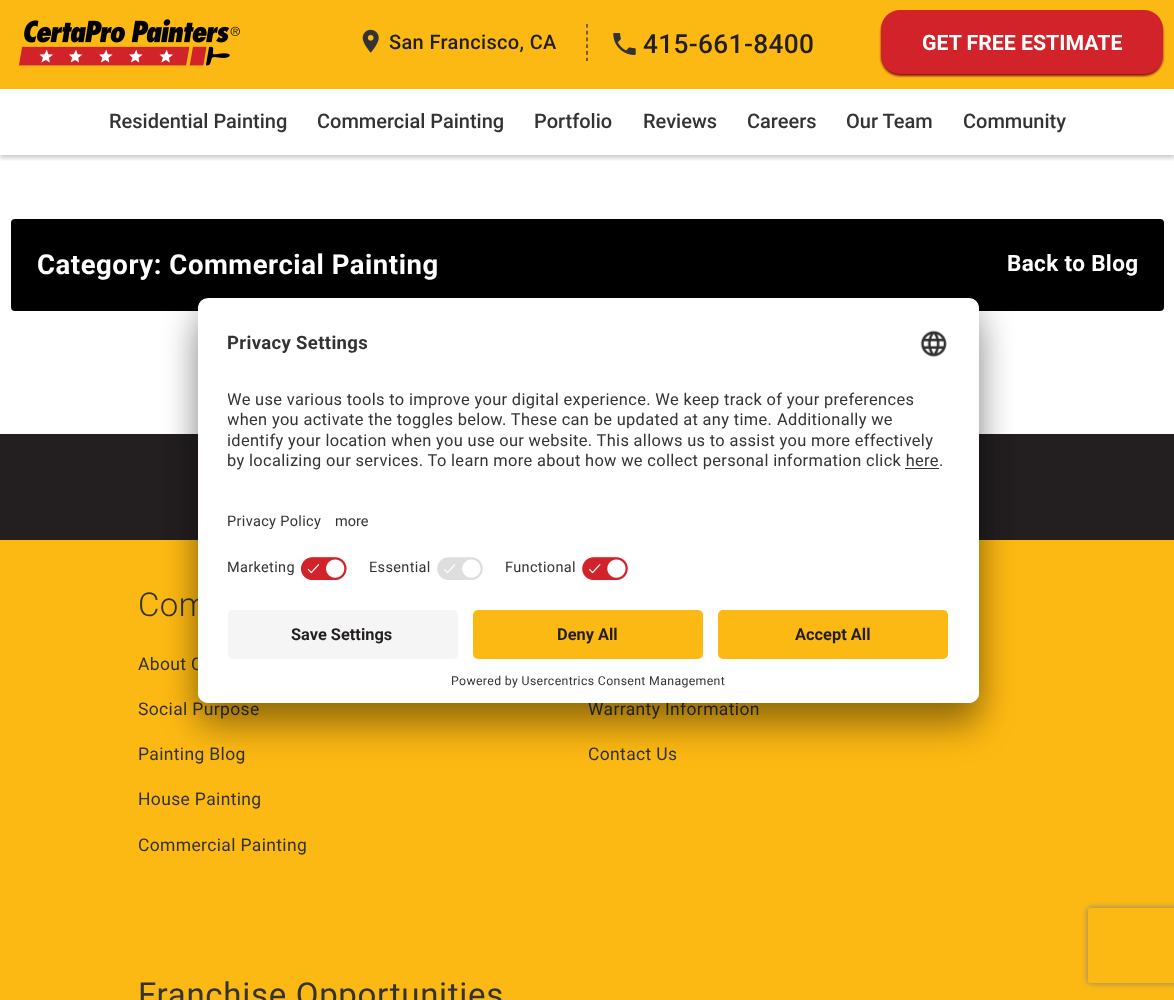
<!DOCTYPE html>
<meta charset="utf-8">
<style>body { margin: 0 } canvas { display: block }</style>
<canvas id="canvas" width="1174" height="1000"></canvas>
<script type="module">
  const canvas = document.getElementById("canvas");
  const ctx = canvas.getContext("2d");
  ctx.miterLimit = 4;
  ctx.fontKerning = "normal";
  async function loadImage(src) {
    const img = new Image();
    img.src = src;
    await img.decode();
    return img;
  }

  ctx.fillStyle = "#ffffff";
  ctx.fillRect(0, 0, 1174, 1000);
  ctx.save();
  ctx.beginPath();
  ctx.rect(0, 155, 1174, 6);
  ctx.clip();
  ctx.fillStyle = "rgba(0, 0, 0, 0.2)";
  ctx.filter = "blur(2px)";
  ctx.beginPath();
  ctx.rect(0, 91, 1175, 67);
  ctx.fill();
  ctx.filter = "none";
  ctx.restore();
  ctx.fillStyle = "#fdb913";
  ctx.fillRect(0, 0, 1174, 89);
  ctx.drawImage(await loadImage("img1.png"), 19, 19, 221, 47);
  ctx.drawImage(await loadImage("img2.png"), 362, 29, 17, 24);
  ctx.letterSpacing = "0.35px";
  ctx.font = "500 20px Roboto";
  ctx.fillStyle = "#231f20";
  ctx.fillText("San Francisco, CA", 389, 49);
  ctx.beginPath();
  ctx.moveTo(587, 24);
  ctx.lineTo(587, 61);
  ctx.strokeStyle = "#231f20";
  ctx.lineWidth = 1.2;
  ctx.setLineDash([3.75, 3]);
  ctx.stroke();
  ctx.drawImage(await loadImage("img3.png"), 613, 33, 23, 22);
  ctx.font = "500 26.25px Roboto";
  ctx.fillText("415-661-8400", 643, 53);
  ctx.fillStyle = "#851216";
  ctx.filter = "blur(1px)";
  ctx.beginPath();
  ctx.roundRect(881, 13, 282, 63, 19);
  ctx.fill();
  ctx.filter = "none";
  ctx.fillStyle = "#d2232a";
  ctx.beginPath();
  ctx.roundRect(881, 10, 282, 64, 19);
  ctx.fill();
  ctx.letterSpacing = "0px";
  ctx.font = "bold 21.25px Roboto";
  ctx.fillStyle = "#ffffff";
  ctx.fillText("GET FREE ESTIMATE", 922, 50);
  ctx.font = "500 20px Roboto";
  ctx.fillStyle = "#333333";
  ctx.fillText("Residential Painting", 109, 128);
  ctx.fillText("Commercial Painting", 317, 128);
  ctx.fillText("Portfolio", 534, 128);
  ctx.fillText("Reviews", 643, 128);
  ctx.fillText("Careers", 747, 128);
  ctx.fillText("Our Team", 846, 128);
  ctx.fillText("Community", 963, 128);
  ctx.fillStyle = "#000000";
  ctx.beginPath();
  ctx.roundRect(11, 219, 1153, 92, 4);
  ctx.fill();
  ctx.letterSpacing = "0.55px";
  ctx.font = "bold 27.5px Roboto";
  ctx.fillStyle = "#ffffff";
  ctx.fillText("Category: Commercial Painting", 37, 274);
  ctx.letterSpacing = "0.35px";
  ctx.font = "bold 22.5px Roboto";
  ctx.fillText("Back to Blog", 1007, 271);
  ctx.fillStyle = "#231f20";
  ctx.fillRect(0, 434, 1174, 106);
  ctx.fillStyle = "#fdb913";
  ctx.fillRect(0, 540, 1174, 460);
  ctx.font = "300 33px Roboto";
  ctx.fillStyle = "#333333";
  ctx.fillText("Com", 138, 616);
  ctx.font = "17.5px Roboto";
  ctx.fillText("About C", 138, 670);
  ctx.fillText("Social Purpose", 138, 715);
  ctx.fillText("Painting Blog", 138, 760);
  ctx.fillText("House Painting", 138, 805);
  ctx.fillText("Commercial Painting", 138, 851);
  ctx.fillText("Warranty Information", 588, 715);
  ctx.fillText("Contact Us", 588, 760);
  ctx.letterSpacing = "0.7px";
  ctx.font = "33px Roboto";
  ctx.fillText("Franchise Opportunities", 138, 1006);
  ctx.fillStyle = "rgba(0, 0, 0, 0.3)";
  ctx.filter = "blur(17.5px)";
  ctx.beginPath();
  ctx.roundRect(198, 323, 781, 405, 10);
  ctx.fill();
  ctx.filter = "none";
  ctx.fillStyle = "rgba(0, 0, 0, 0.22)";
  ctx.filter = "blur(16px)";
  ctx.beginPath();
  ctx.roundRect(198, 304, 781, 405, 10);
  ctx.fill();
  ctx.filter = "none";
  ctx.fillStyle = "#ffffff";
  ctx.beginPath();
  ctx.roundRect(198, 298, 781, 405, 10);
  ctx.fill();
  ctx.save();
  ctx.beginPath();
  ctx.roundRect(198, 298, 781, 405, 10);
  ctx.clip();
  ctx.beginPath();
  ctx.roundRect(198, 298, 781, 302, [10, 10, 0, 0]);
  ctx.clip();
  ctx.fillRect(198, 299, 781, 301);
  ctx.fillRect(198, 299, 781, 251);
  ctx.restore();
  ctx.letterSpacing = "0.35px";
  ctx.font = "bold 18.5px Roboto";
  ctx.fillStyle = "#333333";
  ctx.fillText("Privacy Settings", 227, 349);
  ctx.drawImage(await loadImage("img4.png"), 920, 330, 27, 27);
  ctx.save();
  ctx.beginPath();
  ctx.rect(228, 369, 721, 124);
  ctx.clip();
  ctx.font = "16.4px Roboto";
  ctx.fillText("We use various tools to improve your digital experience. We keep track of your preferences", 227, 405);
  ctx.fillText("when you activate the toggles below. These can be updated at any time.", 227, 425);
  ctx.restore();
  ctx.font = "16.4px Roboto";
  ctx.fillText("Additionally we", 777, 425);
  ctx.fillText("identify your location when you use our website. This allows us to assist you more effectively", 227, 446);
  ctx.fillText("by localizing our services. To learn more about how we collect personal information click here.", 227, 466);
  ctx.fillStyle = "#303030";
  ctx.fillRect(905, 468, 34, 1);
  ctx.font = "14.5px Roboto";
  ctx.fillStyle = "#333333";
  ctx.fillText("Privacy Policy", 227, 526);
  ctx.letterSpacing = "0px";
  ctx.fillText("more", 335, 526);
  ctx.letterSpacing = "0.35px";
  ctx.fillText("Marketing", 227, 572);
  ctx.drawImage(await loadImage("img5.png"), 300, 556, 48, 25);
  ctx.fillText("Essential", 369, 572);
  ctx.drawImage(await loadImage("img6.png"), 437, 557, 46, 23);
  ctx.fillText("Functional", 505, 572);
  ctx.drawImage(await loadImage("img7.png"), 581, 556, 48, 25);
  ctx.fillStyle = "#ffffff";
  ctx.beginPath();
  ctx.roundRect(198, 600, 781, 103, [0, 0, 10, 10]);
  ctx.fill();
  ctx.fillStyle = "#f5f5f5";
  ctx.beginPath();
  ctx.roundRect(228, 610, 230, 49, 5);
  ctx.fill();
  ctx.letterSpacing = "0px";
  ctx.font = "bold 16.4px Roboto";
  ctx.fillStyle = "#231f20";
  ctx.fillText("Save Settings", 291, 640);
  ctx.fillStyle = "#fdb913";
  ctx.beginPath();
  ctx.roundRect(473, 610, 230, 49, 5);
  ctx.fill();
  ctx.fillStyle = "#231f20";
  ctx.fillText("Deny All", 557, 640);
  ctx.fillStyle = "#fdb913";
  ctx.beginPath();
  ctx.roundRect(718, 610, 230, 49, 5);
  ctx.fill();
  ctx.fillStyle = "#231f20";
  ctx.fillText("Accept All", 795, 640);
  ctx.letterSpacing = "0.35px";
  ctx.font = "12.3px Roboto";
  ctx.fillStyle = "#333333";
  ctx.fillText("Powered by Usercentrics Consent Management", 451, 685);
  ctx.save();
  ctx.beginPath();
  ctx.moveTo(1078, 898);
  ctx.lineTo(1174, 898);
  ctx.lineTo(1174, 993);
  ctx.lineTo(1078, 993);
  ctx.closePath();
  ctx.moveTo(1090.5, 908);
  ctx.lineTo(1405.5, 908);
  ctx.bezierCurveTo(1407, 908, 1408, 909, 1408, 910.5);
  ctx.lineTo(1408, 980.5);
  ctx.bezierCurveTo(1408, 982, 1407, 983, 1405.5, 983);
  ctx.lineTo(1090.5, 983);
  ctx.bezierCurveTo(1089, 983, 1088, 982, 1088, 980.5);
  ctx.lineTo(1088, 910.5);
  ctx.bezierCurveTo(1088, 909, 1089, 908, 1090.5, 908);
  ctx.closePath();
  ctx.clip("evenodd");
  ctx.fillStyle = "#808080";
  ctx.filter = "blur(3px)";
  ctx.beginPath();
  ctx.roundRect(1088, 908, 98, 75, 2.5);
  ctx.fill();
  ctx.filter = "none";
  ctx.restore();
</script>
